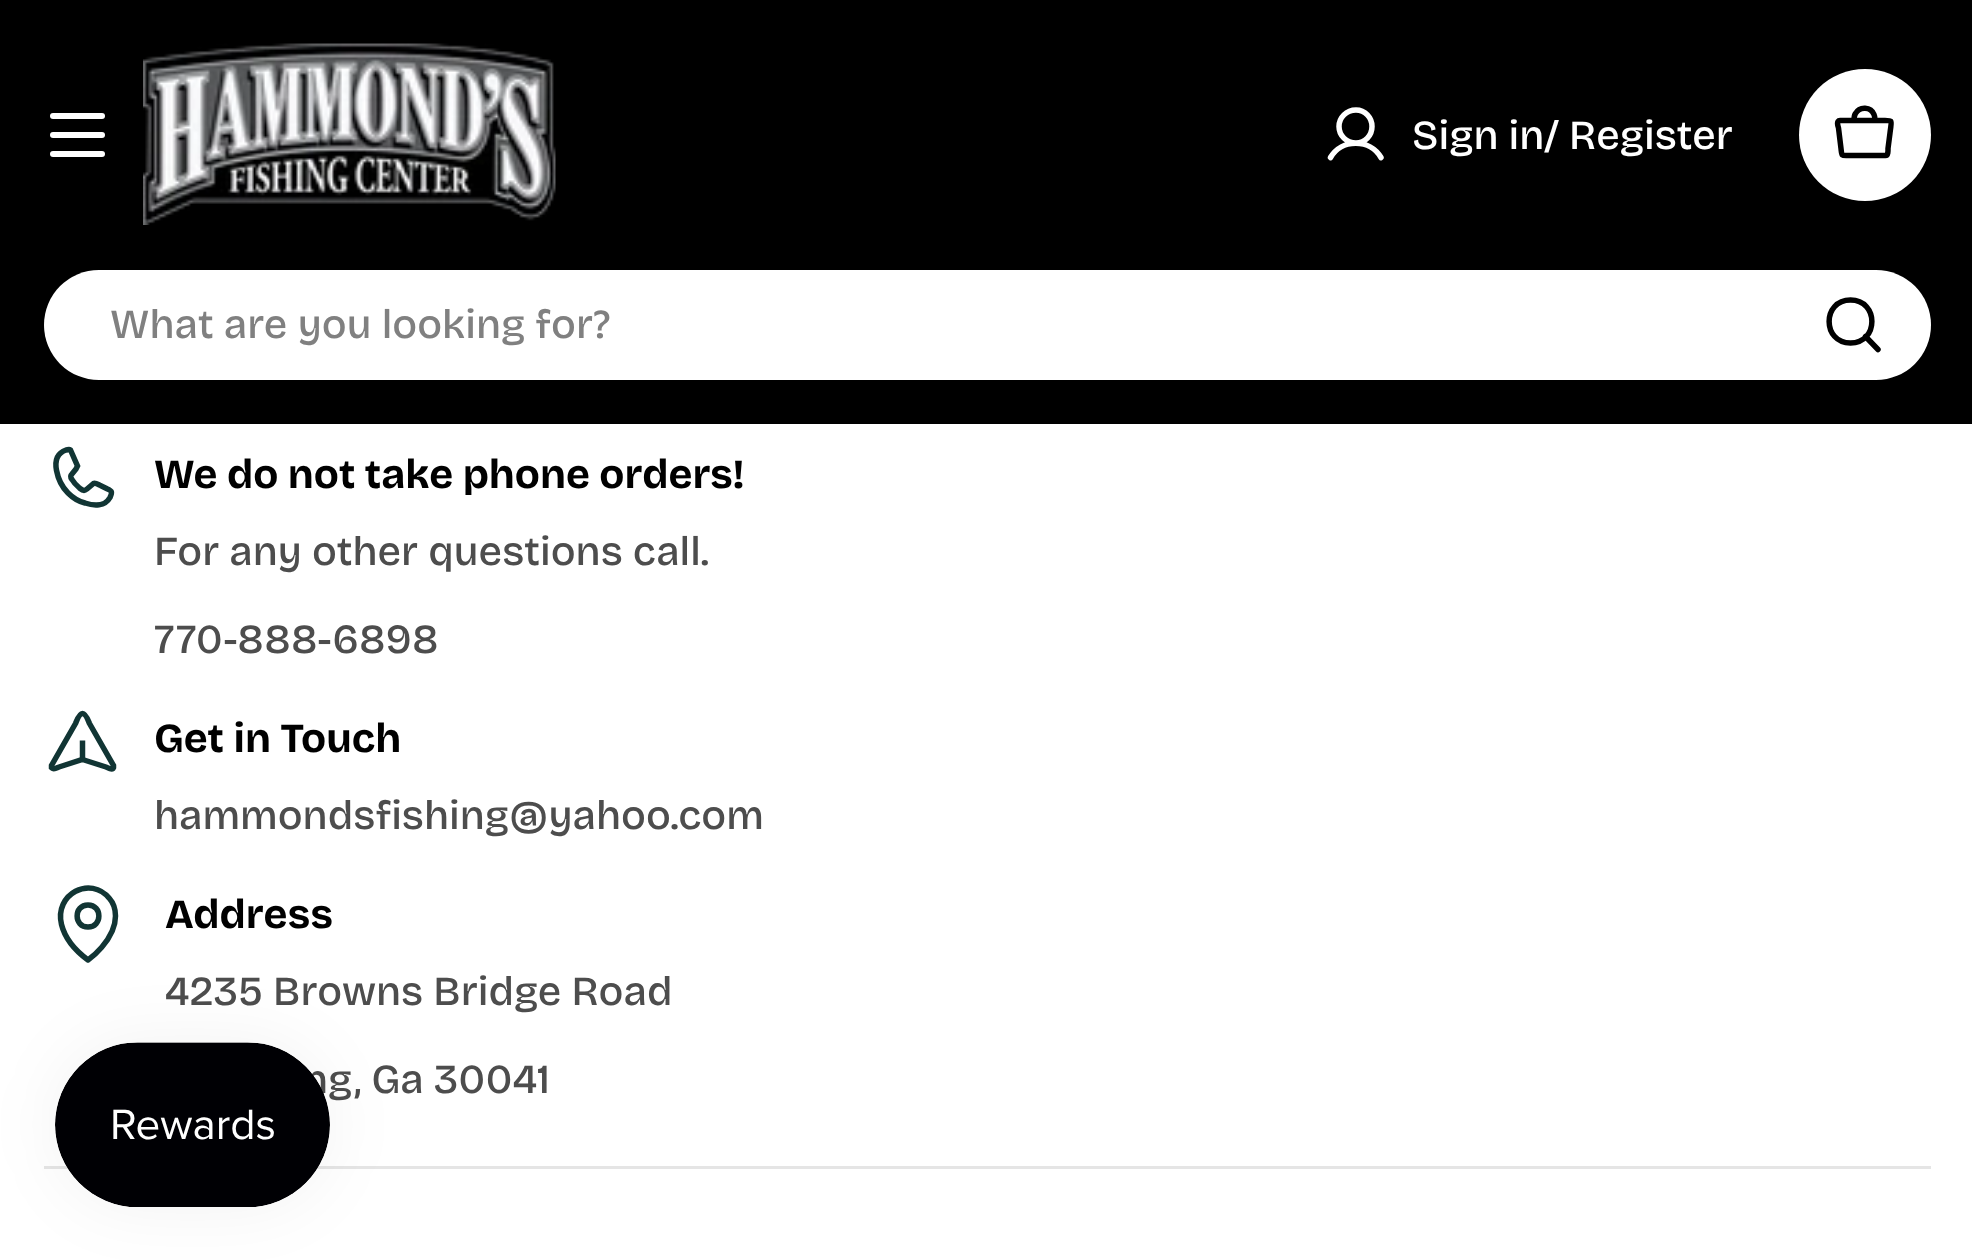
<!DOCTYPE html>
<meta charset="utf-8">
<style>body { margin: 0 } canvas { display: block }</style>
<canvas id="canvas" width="1972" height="1260"></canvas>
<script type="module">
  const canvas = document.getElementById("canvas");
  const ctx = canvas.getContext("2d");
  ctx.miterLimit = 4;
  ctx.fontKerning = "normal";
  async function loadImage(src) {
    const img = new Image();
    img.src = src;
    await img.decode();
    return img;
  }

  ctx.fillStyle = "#ffffff";
  ctx.fillRect(0, 0, 1972, 1260);
  ctx.fillStyle = "#000000";
  ctx.fillRect(0, 0, 1972, 424);
  ctx.fillStyle = "#ffffff";
  ctx.beginPath();
  ctx.roundRect(50, 132, 55, 6, 3);
  ctx.fill();
  ctx.beginPath();
  ctx.roundRect(50, 113, 55, 6, 3);
  ctx.fill();
  ctx.beginPath();
  ctx.roundRect(50, 151, 55, 6, 3);
  ctx.fill();
  ctx.drawImage(await loadImage("img1.png"), 143, 43, 413, 182);
  ctx.beginPath();
  ctx.moveTo(1356, 143);
  ctx.bezierCurveTo(1365, 143, 1372, 135.5, 1372, 126.5);
  ctx.bezierCurveTo(1372, 117.5, 1365, 110, 1356, 110);
  ctx.bezierCurveTo(1346.5, 110, 1339, 117.5, 1339, 126.5);
  ctx.bezierCurveTo(1339, 135.5, 1346.5, 143, 1356, 143);
  ctx.closePath();
  ctx.moveTo(1330.5, 157.5);
  ctx.bezierCurveTo(1341.5, 138.5, 1370, 138.5, 1381, 157.5);
  ctx.strokeStyle = "#ffffff";
  ctx.lineWidth = 5.5;
  ctx.lineCap = "round";
  ctx.lineJoin = "round";
  ctx.stroke();
  ctx.font = "500 41.25px Bricolage Grotesque";
  ctx.fillText("Sign in/ Register", 1412, 149);
  ctx.beginPath();
  ctx.arc(1865, 135, 66, 0, Math.PI * 2);
  ctx.fill();
  ctx.beginPath();
  ctx.moveTo(1885.5, 155.5);
  ctx.lineTo(1850.5, 155.5);
  ctx.bezierCurveTo(1841, 155.5, 1842, 157, 1841, 148.5);
  ctx.lineTo(1838.5, 128);
  ctx.bezierCurveTo(1838, 126.5, 1836, 120.5, 1840, 120.5);
  ctx.lineTo(1881, 120.5);
  ctx.bezierCurveTo(1894, 120.5, 1891.5, 119, 1890, 133);
  ctx.lineTo(1888, 148.5);
  ctx.bezierCurveTo(1888, 149.5, 1888.5, 155.5, 1885.5, 155.5);
  ctx.closePath();
  ctx.moveTo(1854, 120.5);
  ctx.bezierCurveTo(1854, 118, 1854, 115.5, 1855.5, 113.5);
  ctx.bezierCurveTo(1859.5, 106, 1871, 106.5, 1874, 114.5);
  ctx.bezierCurveTo(1875, 116.5, 1875, 118, 1875, 120.5);
  ctx.strokeStyle = "#000000";
  ctx.stroke();
  ctx.beginPath();
  ctx.roundRect(44, 270, 1887, 110, 55);
  ctx.fill();
  ctx.fillStyle = "#808080";
  ctx.fillText("What are you looking for?", 110, 338);
  ctx.beginPath();
  ctx.moveTo(1850.5, 343);
  ctx.bezierCurveTo(1879, 343, 1879, 300, 1850.5, 300);
  ctx.bezierCurveTo(1822, 300, 1822, 343, 1850.5, 343);
  ctx.closePath();
  ctx.moveTo(1865.5, 336.5);
  ctx.lineTo(1878, 349.5);
  ctx.stroke();
  ctx.beginPath();
  ctx.moveTo(93.5, 483.5);
  ctx.bezierCurveTo(95.5, 482.5, 99, 485, 100.5, 485.5);
  ctx.lineTo(107.5, 489);
  ctx.bezierCurveTo(112, 491, 112.5, 492, 110, 497.5);
  ctx.bezierCurveTo(105, 506.5, 94, 506, 85, 503);
  ctx.bezierCurveTo(78.5, 501.5, 72.5, 497.5, 68, 493);
  ctx.bezierCurveTo(58.5, 483.5, 47.5, 456.5, 66, 450);
  ctx.bezierCurveTo(67.5, 450, 69, 449, 70.5, 450);
  ctx.lineTo(77.5, 466);
  ctx.lineTo(76, 469);
  ctx.lineTo(72, 474);
  ctx.bezierCurveTo(70, 476, 70, 477, 72, 479.5);
  ctx.bezierCurveTo(74, 483, 76.5, 485.5, 79.5, 488);
  ctx.bezierCurveTo(83, 490.5, 84, 491.5, 87, 489);
  ctx.closePath();
  ctx.strokeStyle = "#113534";
  ctx.lineCap = "butt";
  ctx.lineJoin = "miter";
  ctx.stroke();
  ctx.font = "bold 41.25px Bricolage Grotesque";
  ctx.fillStyle = "#000000";
  ctx.fillText("We do not take phone orders!", 154, 488);
  ctx.font = "500 41.25px Bricolage Grotesque";
  ctx.fillStyle = "#4d4d4d";
  ctx.fillText("For any other questions call.", 154, 565);
  ctx.fillText("770-888-6898", 154, 653);
  ctx.beginPath();
  ctx.moveTo(82.5, 740.5);
  ctx.lineTo(82.5, 759.5);
  ctx.stroke();
  ctx.beginPath();
  ctx.moveTo(82.5, 759.5);
  ctx.lineTo(106, 767);
  ctx.bezierCurveTo(107.5, 767.5, 111, 770, 113, 768.5);
  ctx.lineTo(113.5, 767.5);
  ctx.lineTo(113.5, 765.5);
  ctx.lineTo(89.5, 723.5);
  ctx.bezierCurveTo(89, 722.5, 86, 713.5, 82.5, 713.5);
  ctx.bezierCurveTo(79, 713.5, 76, 722.5, 75.5, 723.5);
  ctx.lineTo(51.5, 765.5);
  ctx.lineTo(51.5, 767.5);
  ctx.lineTo(52, 768);
  ctx.bezierCurveTo(54, 770, 57.5, 767.5, 59, 767);
  ctx.closePath();
  ctx.stroke();
  ctx.font = "bold 41.25px Bricolage Grotesque";
  ctx.fillStyle = "#000000";
  ctx.fillText("Get in Touch", 154, 752);
  ctx.font = "500 41.25px Bricolage Grotesque";
  ctx.fillStyle = "#4d4d4d";
  ctx.fillText("hammondsfishing@yahoo.com", 154, 829);
  ctx.beginPath();
  ctx.moveTo(88, 927);
  ctx.bezierCurveTo(102.5, 927, 102.5, 905, 88, 905);
  ctx.bezierCurveTo(73.5, 905, 73.5, 927, 88, 927);
  ctx.closePath();
  ctx.lineCap = "round";
  ctx.lineJoin = "round";
  ctx.stroke();
  ctx.beginPath();
  ctx.moveTo(115.5, 916);
  ctx.bezierCurveTo(115.5, 940.5, 88, 960, 88, 960);
  ctx.bezierCurveTo(76.5, 951.5, 65, 938.5, 61.5, 924.5);
  ctx.bezierCurveTo(54, 894, 90.5, 875, 109.5, 898.5);
  ctx.bezierCurveTo(113.5, 903, 115.5, 909.5, 115.5, 916);
  ctx.closePath();
  ctx.stroke();
  ctx.font = "bold 41.25px Bricolage Grotesque";
  ctx.fillStyle = "#000000";
  ctx.fillText("Address", 165, 928);
  ctx.font = "500 41.25px Bricolage Grotesque";
  ctx.fillStyle = "#4d4d4d";
  ctx.fillText("4235 Browns Bridge Road", 165, 1005);
  ctx.fillText("ng, Ga 30041", 303, 1093);
  ctx.fillStyle = "#e5e5e5";
  ctx.fillRect(44, 1166, 1887, 3);
  ctx.fillStyle = "rgba(0, 0, 0, 0.05)";
  ctx.filter = "blur(34.5px)";
  ctx.beginPath();
  ctx.roundRect(55, 1042, 275, 165, 82.5);
  ctx.fill();
  ctx.filter = "none";
  ctx.drawImage(await loadImage("img2.png"), 55, 1042, 275, 165);
</script>
